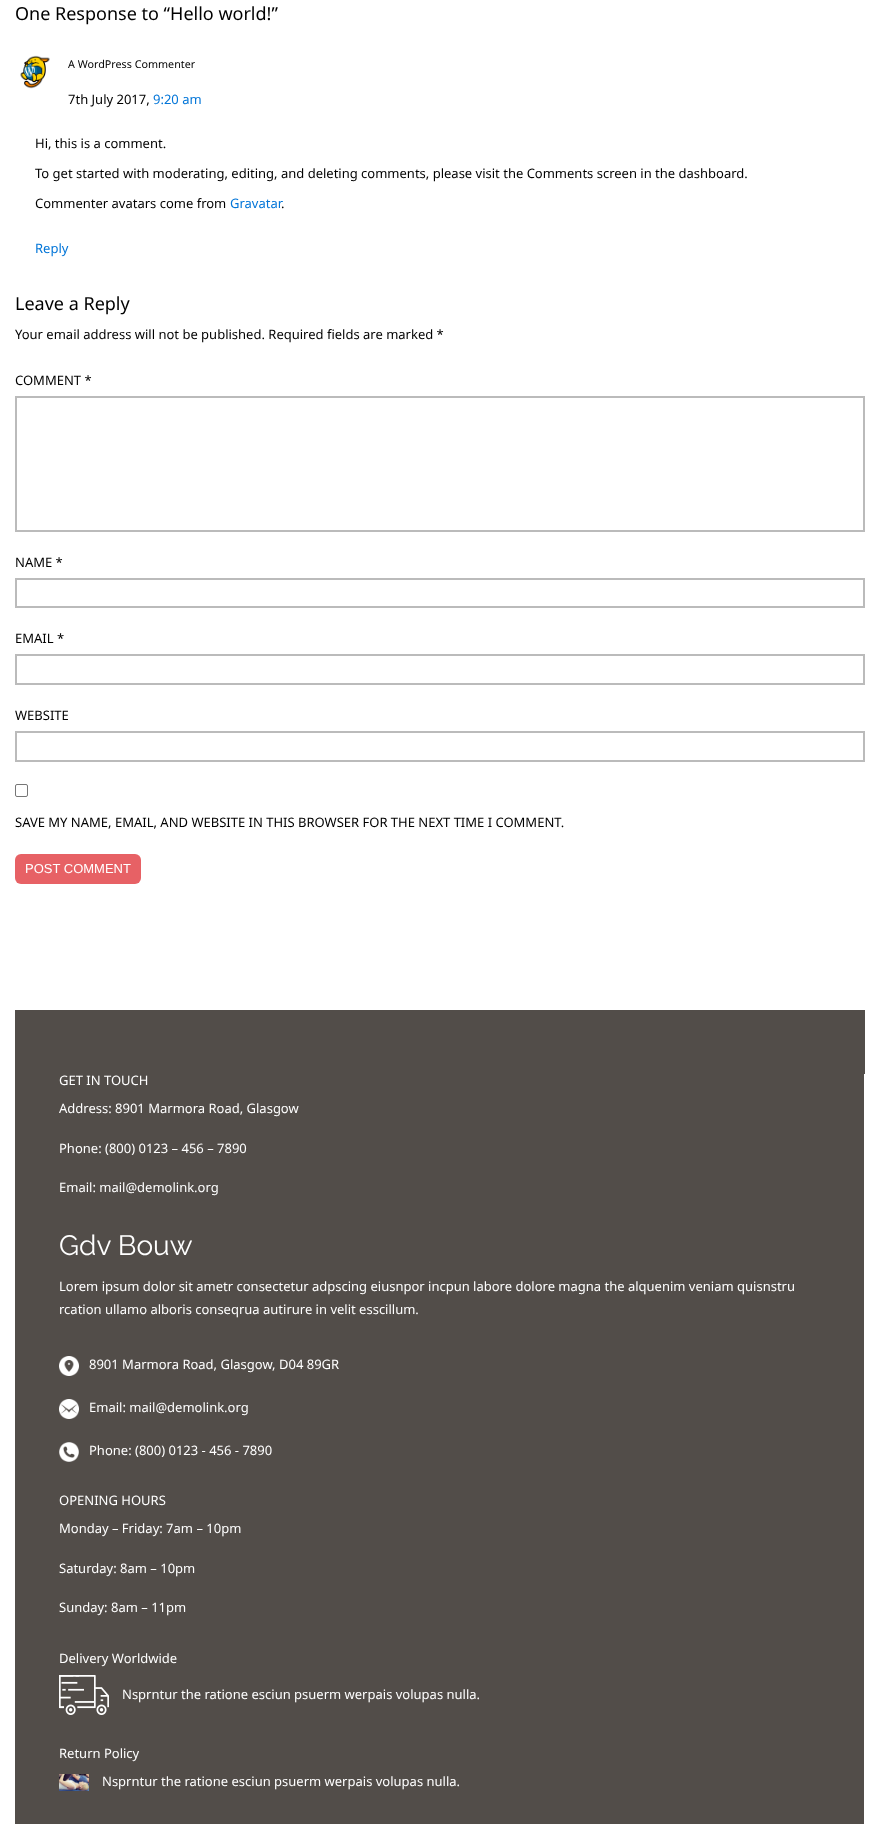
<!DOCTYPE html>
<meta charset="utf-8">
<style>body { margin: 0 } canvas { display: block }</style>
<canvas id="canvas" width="880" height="1824"></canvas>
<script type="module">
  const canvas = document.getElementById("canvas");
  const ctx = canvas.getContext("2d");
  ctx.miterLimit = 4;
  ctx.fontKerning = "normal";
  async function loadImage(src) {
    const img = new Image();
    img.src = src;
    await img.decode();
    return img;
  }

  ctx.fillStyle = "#ffffff";
  ctx.fillRect(0, 0, 880, 1824);
  ctx.font = "18px Noto Sans";
  ctx.fillStyle = "#000000";
  ctx.fillText("One Response to “Hello world!”", 15, 20);
  ctx.save();
  ctx.beginPath();
  ctx.moveTo(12, 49);
  ctx.lineTo(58, 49);
  ctx.lineTo(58, 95);
  ctx.lineTo(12, 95);
  ctx.closePath();
  ctx.moveTo(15, 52);
  ctx.lineTo(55, 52);
  ctx.lineTo(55, 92);
  ctx.lineTo(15, 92);
  ctx.closePath();
  ctx.clip("evenodd");
  ctx.fillStyle = "rgba(0, 0, 0, 0.5)";
  ctx.filter = "blur(0.5px)";
  ctx.beginPath();
  ctx.rect(15, 52, 40, 40);
  ctx.fill();
  ctx.filter = "none";
  ctx.restore();
  ctx.drawImage(await loadImage("img1.png"), 20, 55, 30, 34);
  ctx.font = "10.75px Noto Sans";
  ctx.fillText("A WordPress Commenter", 68, 68);
  ctx.font = "13px Noto Sans";
  ctx.fillText("7th July 2017,", 68, 104);
  ctx.fillStyle = "#0275d8";
  ctx.fillText("9:20 am", 153, 104);
  ctx.fillStyle = "#000000";
  ctx.fillText("Hi, this is a comment.", 35, 148);
  ctx.fillText("To get started with moderating, editing, and deleting comments, please visit the Comments screen in the dashboard.", 35, 178);
  ctx.fillText("Commenter avatars come from", 35, 208);
  ctx.fillStyle = "#0275d8";
  ctx.fillText("Gravatar", 230, 208);
  ctx.fillStyle = "#000000";
  ctx.fillText(".", 281, 208);
  ctx.fillStyle = "#0275d8";
  ctx.fillText("Reply", 35, 253);
  ctx.font = "18px Noto Sans";
  ctx.fillStyle = "#000000";
  ctx.fillText("Leave a Reply", 15, 310);
  ctx.font = "13px Noto Sans";
  ctx.fillText("Your email address will not be published. Required fields are marked *", 15, 339);
  ctx.fillText("COMMENT *", 15, 385);
  ctx.strokeStyle = "#bbbbbb";
  ctx.lineWidth = 2;
  ctx.strokeRect(16, 397, 848, 134);
  ctx.fillText("NAME *", 15, 567);
  ctx.strokeRect(16, 579, 848, 28);
  ctx.fillText("EMAIL *", 15, 643);
  ctx.strokeRect(16, 655, 848, 29);
  ctx.fillText("WEBSITE", 15, 720);
  ctx.strokeRect(16, 732, 848, 29);
  ctx.beginPath();
  ctx.roundRect(15.5, 784.5, 12, 12, 1.5);
  ctx.strokeStyle = "#767676";
  ctx.lineWidth = 1;
  ctx.stroke();
  ctx.fillText("SAVE MY NAME, EMAIL, AND WEBSITE IN THIS BROWSER FOR THE NEXT TIME I COMMENT.", 15, 827);
  ctx.fillStyle = "#e76165";
  ctx.beginPath();
  ctx.roundRect(15, 854, 126, 30, 6);
  ctx.fill();
  ctx.font = "13px Liberation Sans";
  ctx.fillStyle = "#ffffff";
  ctx.fillText("POST COMMENT", 25, 873);
  ctx.fillStyle = "#524d49";
  ctx.fillRect(15, 1010, 850, 814);
  ctx.fillStyle = "#ffffff";
  ctx.fillRect(864, 1074, 1, 750);
  ctx.font = "13px Noto Sans";
  ctx.fillText("GET IN TOUCH", 59, 1085);
  ctx.fillText("Address: 8901 Marmora Road, Glasgow", 59, 1113);
  ctx.fillText("Phone: (800) 0123 – 456 – 7890", 59, 1153);
  ctx.fillText("Email: mail@demolink.org", 59, 1192);
  ctx.font = "28px Raleway";
  ctx.fillText("Gdv Bouw", 59, 1255);
  ctx.font = "13px Noto Sans";
  ctx.fillText("Lorem ipsum dolor sit ametr consectetur adpscing eiusnpor incpun labore dolore magna the alquenim veniam quisnstru", 59, 1291);
  ctx.fillText("rcation ullamo alboris conseqrua autirure in velit esscillum.", 59, 1314);
  ctx.drawImage(await loadImage("img2.png"), 59, 1356, 20, 20);
  ctx.fillText("8901 Marmora Road, Glasgow, D04 89GR", 89, 1369);
  ctx.drawImage(await loadImage("img3.png"), 59, 1399, 20, 20);
  ctx.fillText("Email: mail@demolink.org", 89, 1412);
  ctx.drawImage(await loadImage("img4.png"), 59, 1442, 20, 20);
  ctx.fillText("Phone: (800) 0123 - 456 - 7890", 89, 1455);
  ctx.fillText("OPENING HOURS", 59, 1505);
  ctx.fillText("Monday – Friday: 7am – 10pm", 59, 1533);
  ctx.fillText("Saturday: 8am – 10pm", 59, 1573);
  ctx.fillText("Sunday: 8am – 11pm", 59, 1612);
  ctx.fillText("Delivery Worldwide", 59, 1663);
  ctx.drawImage(await loadImage("img5.png"), 59, 1675, 50, 40);
  ctx.fillText("Nsprntur the ratione esciun psuerm werpais volupas nulla.", 122, 1699);
  ctx.fillText("Return Policy", 59, 1758);
  ctx.drawImage(await loadImage("img6.png"), 59, 1774, 30, 17);
  ctx.fillText("Nsprntur the ratione esciun psuerm werpais volupas nulla.", 102, 1786);
</script>
